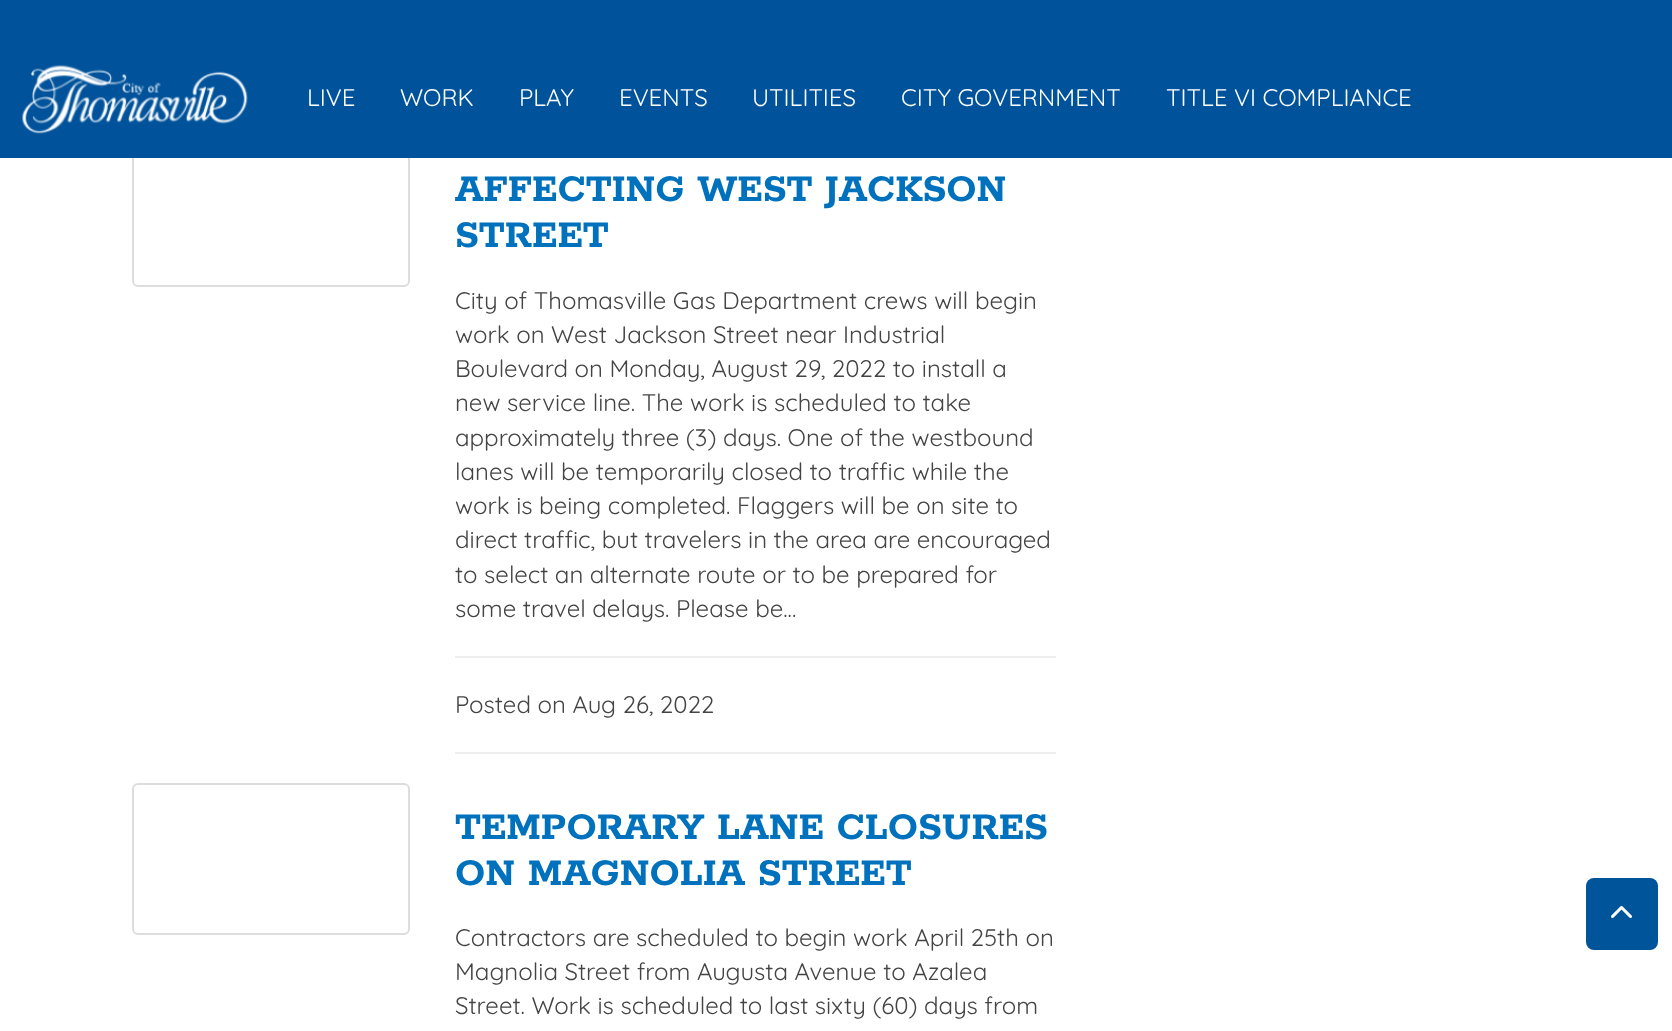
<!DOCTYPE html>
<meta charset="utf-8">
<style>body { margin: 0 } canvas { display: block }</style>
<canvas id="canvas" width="1672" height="1031"></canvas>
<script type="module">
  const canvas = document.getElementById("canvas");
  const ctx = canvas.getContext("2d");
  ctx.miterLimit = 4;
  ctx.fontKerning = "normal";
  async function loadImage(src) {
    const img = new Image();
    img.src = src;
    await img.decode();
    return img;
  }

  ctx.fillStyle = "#ffffff";
  ctx.fillRect(0, 0, 1672, 1031);
  ctx.beginPath();
  ctx.roundRect(133, 100, 276, 186, 5);
  ctx.strokeStyle = "#dddddd";
  ctx.lineWidth = 2;
  ctx.stroke();
  ctx.fillStyle = "#00539b";
  ctx.fillRect(0, 0, 1672, 158);
  ctx.drawImage(await loadImage("img1.png"), 22, 65, 226, 69);
  ctx.font = "24px Quicksand";
  ctx.fillStyle = "#ffffff";
  ctx.fillText("LIVE", 307, 106);
  ctx.fillText("WORK", 400, 106);
  ctx.fillText("PLAY", 519, 106);
  ctx.fillText("EVENTS", 619, 106);
  ctx.fillText("UTILITIES", 752, 106);
  ctx.fillText("CITY GOVERNMENT", 901, 106);
  ctx.fillText("TITLE VI COMPLIANCE", 1166, 106);
  ctx.font = "bold 42px Rokkitt";
  ctx.fillStyle = "#0071bd";
  ctx.fillText("AFFECTING WEST JACKSON", 455, 201);
  ctx.fillText("STREET", 455, 247);
  ctx.font = "24px Quicksand";
  ctx.fillStyle = "#444444";
  ctx.fillText("City of Thomasville Gas Department crews will begin", 455, 309);
  ctx.fillText("work on West Jackson Street near Industrial", 455, 343);
  ctx.fillText("Boulevard on Monday, August 29, 2022 to install a", 455, 377);
  ctx.fillText("new service line. The work is scheduled to take", 455, 411);
  ctx.fillText("approximately three (3) days. One of the westbound", 455, 446);
  ctx.fillText("lanes will be temporarily closed to traffic while the", 455, 480);
  ctx.fillText("work is being completed. Flaggers will be on site to", 455, 514);
  ctx.fillText("direct traffic, but travelers in the area are encouraged", 455, 548);
  ctx.fillText("to select an alternate route or to be prepared for", 455, 583);
  ctx.fillText("some travel delays. Please be...", 455, 617);
  ctx.fillStyle = "#eeeeee";
  ctx.fillRect(455, 656, 601, 2);
  ctx.fillStyle = "#444444";
  ctx.fillText("Posted on Aug 26, 2022", 455, 713);
  ctx.fillStyle = "#eeeeee";
  ctx.fillRect(455, 752, 601, 2);
  ctx.beginPath();
  ctx.roundRect(133, 784, 276, 150, 5);
  ctx.stroke();
  ctx.font = "bold 42px Rokkitt";
  ctx.fillStyle = "#0071bd";
  ctx.fillText("TEMPORARY LANE CLOSURES", 455, 839);
  ctx.fillText("ON MAGNOLIA STREET", 455, 885);
  ctx.font = "24px Quicksand";
  ctx.fillStyle = "#444444";
  ctx.fillText("Contractors are scheduled to begin work April 25th on", 455, 946);
  ctx.fillText("Magnolia Street from Augusta Avenue to Azalea", 455, 980);
  ctx.fillText("Street. Work is scheduled to last sixty (60) days from", 455, 1014);
  ctx.fillStyle = "#005499";
  ctx.beginPath();
  ctx.roundRect(1586, 878, 72, 72, 8);
  ctx.fill();
  ctx.drawImage(await loadImage("img2.png"), 1611, 906, 21, 12);
</script>
